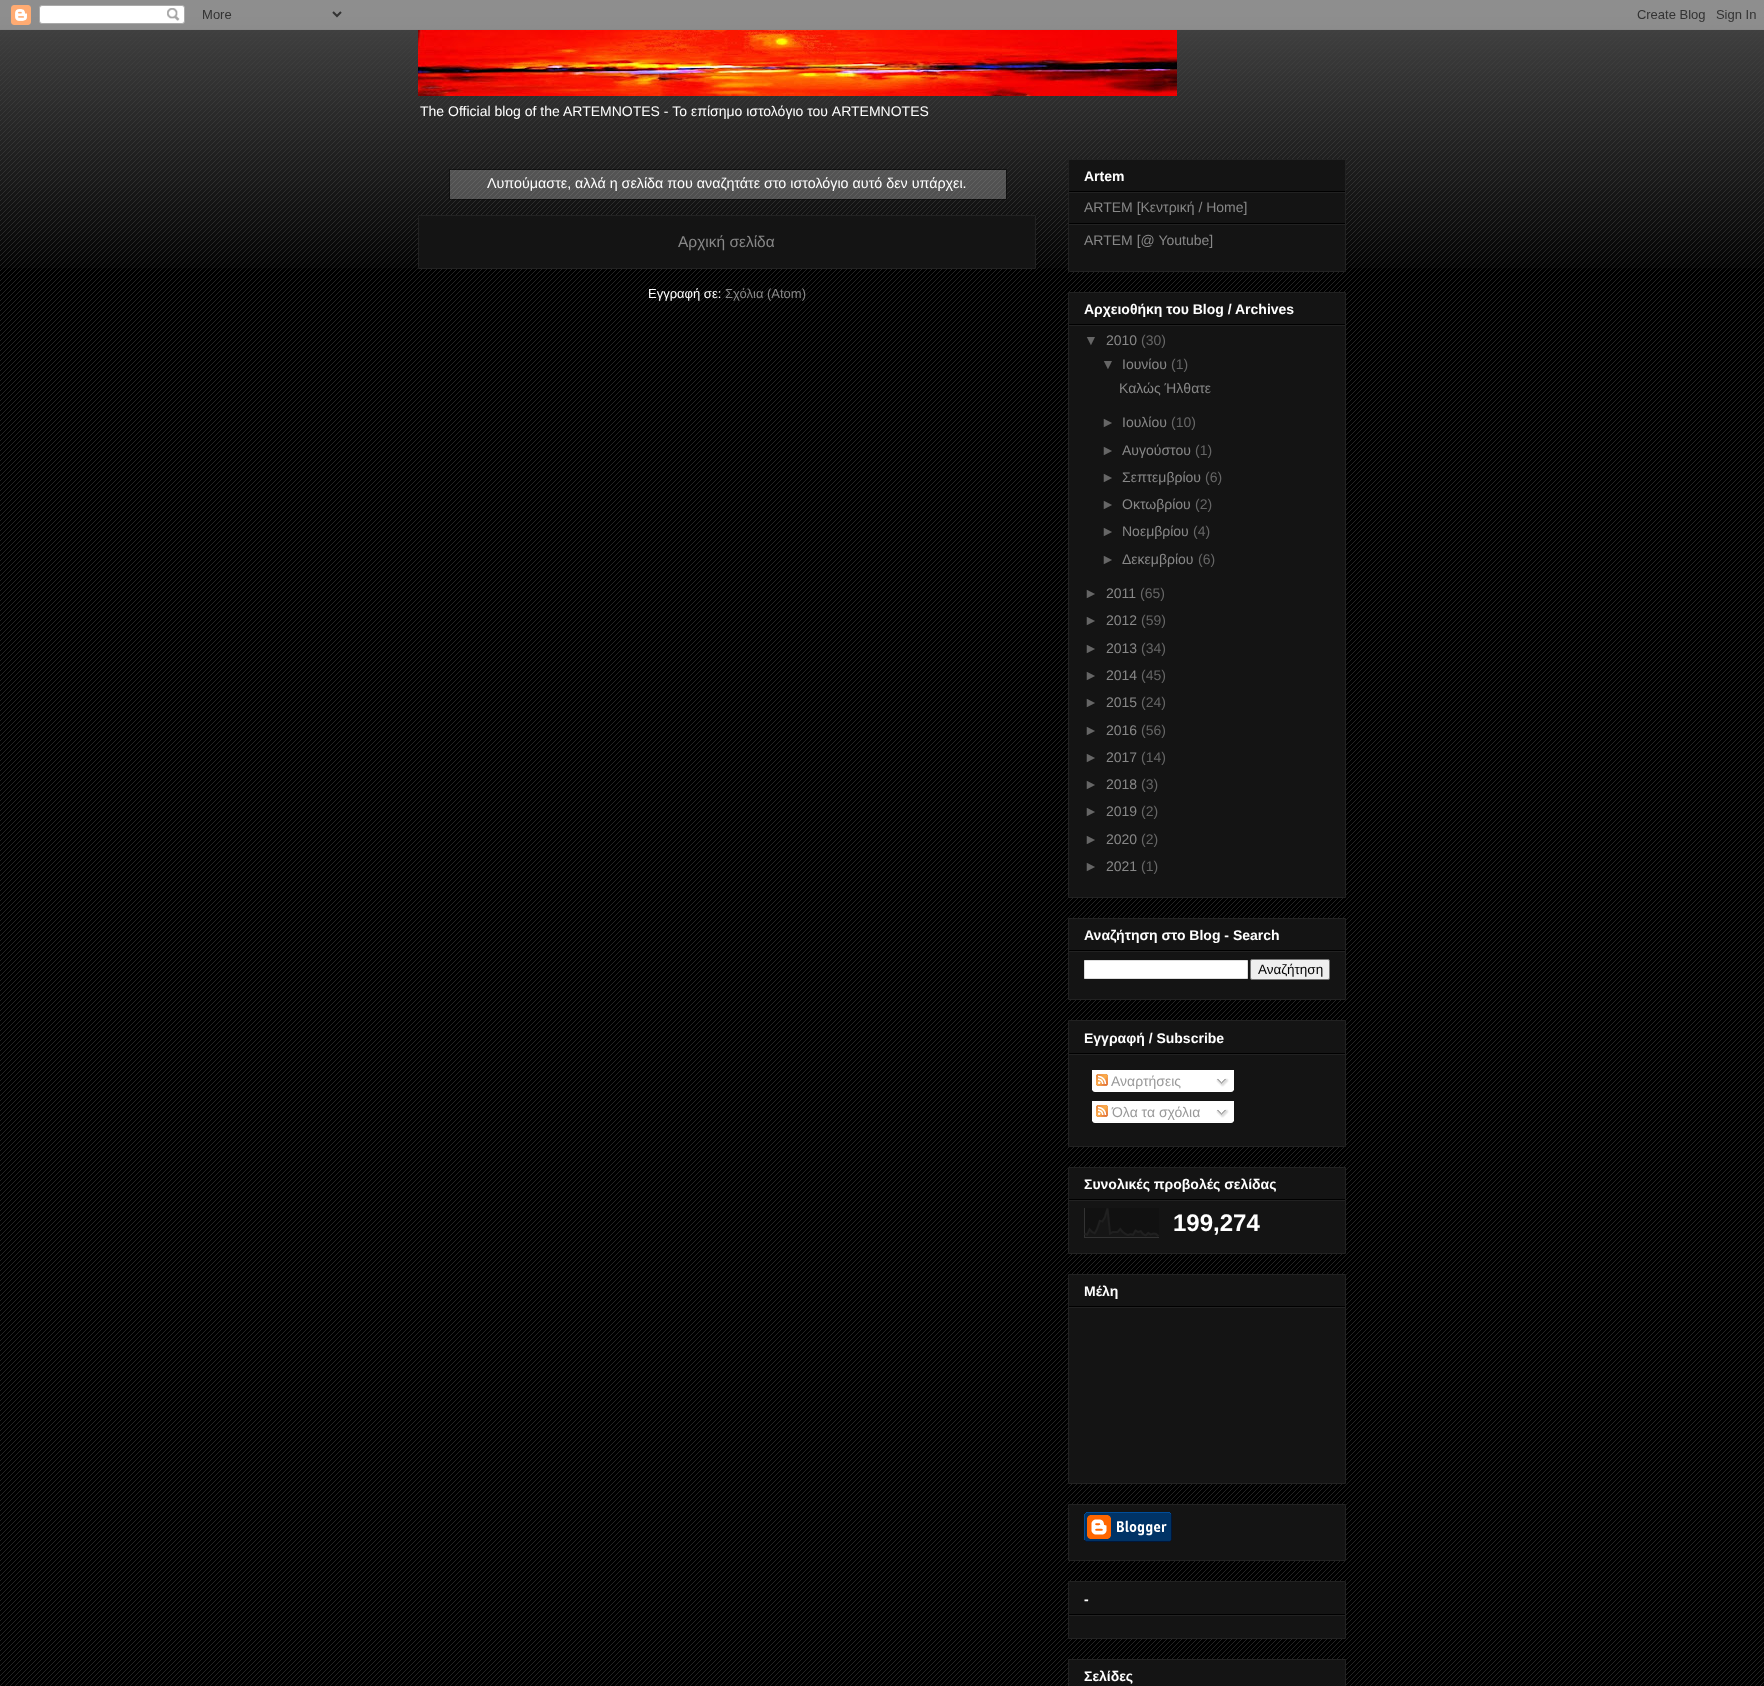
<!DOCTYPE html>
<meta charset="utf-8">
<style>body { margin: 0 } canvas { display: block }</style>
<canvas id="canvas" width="1764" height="1686"></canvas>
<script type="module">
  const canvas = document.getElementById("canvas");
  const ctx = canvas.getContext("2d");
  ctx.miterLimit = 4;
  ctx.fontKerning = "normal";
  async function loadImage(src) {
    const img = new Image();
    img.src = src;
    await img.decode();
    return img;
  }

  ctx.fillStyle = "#000000";
  ctx.fillRect(0, 0, 1764, 1686);
  ctx.drawImage(await loadImage("img1.png"), 0, 13, 1764, 1673);
  ctx.drawImage(await loadImage("img2.png"), 0, 0, 1764, 268);
  ctx.drawImage(await loadImage("img3.png"), 0, 0, 1764, 30);
  ctx.drawImage(await loadImage("img4.png"), 418, 30, 759, 66);
  ctx.font = "14px Liberation Sans";
  ctx.fillStyle = "#ffffff";
  ctx.fillText("The Official blog of the ARTEMNOTES - Το επίσημο ιστολόγιο του ARTEMNOTES", 420, 116);
  ctx.strokeStyle = "rgba(0, 0, 0, 0.4)";
  ctx.strokeRect(449.5, 169.5, 557, 30);
  ctx.fillStyle = "rgba(204, 204, 204, 0.32)";
  ctx.fillRect(450, 170, 556, 29);
  ctx.font = "14.3px Liberation Sans";
  ctx.fillStyle = "#ffffff";
  ctx.fillText("Λυπούμαστε, αλλά η σελίδα που αναζητάτε στο ιστολόγιο αυτό δεν υπάρχει.", 487, 188);
  ctx.fillStyle = "#141414";
  ctx.beginPath();
  ctx.rect(418.5, 215.5, 617, 53);
  ctx.fill();
  ctx.strokeStyle = "#222222";
  ctx.stroke();
  ctx.font = "15.5px Liberation Sans";
  ctx.fillStyle = "#888888";
  ctx.fillText("Αρχική σελίδα", 678, 247);
  ctx.font = "13px Liberation Sans";
  ctx.fillStyle = "#ffffff";
  ctx.fillText("Εγγραφή σε:", 648, 298);
  ctx.fillStyle = "#888888";
  ctx.fillText("Σχόλια (Atom)", 725, 298);
  ctx.fillStyle = "#141414";
  ctx.beginPath();
  ctx.rect(1068.5, 159.5, 277, 112);
  ctx.fill();
  ctx.stroke();
  ctx.fillStyle = "#000000";
  ctx.fillRect(1069, 191, 276, 1);
  ctx.font = "bold 14px Liberation Sans";
  ctx.fillStyle = "#ffffff";
  ctx.fillText("Artem", 1084, 181);
  ctx.fillStyle = "#222222";
  ctx.fillRect(1069, 192, 276, 1);
  ctx.fillStyle = "#000000";
  ctx.fillRect(1069, 223, 276, 1);
  ctx.font = "14px Liberation Sans";
  ctx.fillStyle = "#888888";
  ctx.fillText("ARTEM [Κεντρική / Home]", 1084, 212);
  ctx.fillStyle = "#222222";
  ctx.fillRect(1069, 224, 276, 1);
  ctx.fillStyle = "#888888";
  ctx.fillText("ARTEM [@ Youtube]", 1084, 245);
  ctx.fillStyle = "#141414";
  ctx.beginPath();
  ctx.rect(1068.5, 292.5, 277, 605);
  ctx.fill();
  ctx.stroke();
  ctx.fillStyle = "#000000";
  ctx.fillRect(1069, 324, 276, 1);
  ctx.font = "bold 14px Liberation Sans";
  ctx.fillStyle = "#ffffff";
  ctx.fillText("Αρχειοθήκη του Blog / Archives", 1084, 314);
  ctx.fillStyle = "#222222";
  ctx.fillRect(1069, 325, 276, 1);
  ctx.font = "14px Liberation Sans";
  ctx.fillStyle = "#666666";
  ctx.fillText("▼", 1084, 345);
  ctx.fillStyle = "#888888";
  ctx.fillText("2010", 1106, 345);
  ctx.fillStyle = "#666666";
  ctx.fillText("(30)", 1141, 345);
  ctx.fillText("▼", 1101, 369);
  ctx.fillStyle = "#888888";
  ctx.fillText("Ιουνίου", 1122, 369);
  ctx.fillStyle = "#666666";
  ctx.fillText("(1)", 1171, 369);
  ctx.fillStyle = "#888888";
  ctx.fillText("Καλώς Ήλθατε", 1119, 393);
  ctx.fillStyle = "#666666";
  ctx.fillText("►", 1101, 427);
  ctx.fillStyle = "#888888";
  ctx.fillText("Ιουλίου", 1122, 427);
  ctx.fillStyle = "#666666";
  ctx.fillText("(10)", 1171, 427);
  ctx.fillText("►", 1101, 455);
  ctx.fillStyle = "#888888";
  ctx.fillText("Αυγούστου", 1122, 455);
  ctx.fillStyle = "#666666";
  ctx.fillText("(1)", 1195, 455);
  ctx.fillText("►", 1101, 482);
  ctx.fillStyle = "#888888";
  ctx.fillText("Σεπτεμβρίου", 1122, 482);
  ctx.fillStyle = "#666666";
  ctx.fillText("(6)", 1205, 482);
  ctx.fillText("►", 1101, 509);
  ctx.fillStyle = "#888888";
  ctx.fillText("Οκτωβρίου", 1122, 509);
  ctx.fillStyle = "#666666";
  ctx.fillText("(2)", 1195, 509);
  ctx.fillText("►", 1101, 536);
  ctx.fillStyle = "#888888";
  ctx.fillText("Νοεμβρίου", 1122, 536);
  ctx.fillStyle = "#666666";
  ctx.fillText("(4)", 1193, 536);
  ctx.fillText("►", 1101, 564);
  ctx.fillStyle = "#888888";
  ctx.fillText("Δεκεμβρίου", 1122, 564);
  ctx.fillStyle = "#666666";
  ctx.fillText("(6)", 1198, 564);
  ctx.fillText("►", 1084, 598);
  ctx.fillStyle = "#888888";
  ctx.fillText("2011", 1106, 598);
  ctx.fillStyle = "#666666";
  ctx.fillText("(65)", 1140, 598);
  ctx.fillText("►", 1084, 625);
  ctx.fillStyle = "#888888";
  ctx.fillText("2012", 1106, 625);
  ctx.fillStyle = "#666666";
  ctx.fillText("(59)", 1141, 625);
  ctx.fillText("►", 1084, 653);
  ctx.fillStyle = "#888888";
  ctx.fillText("2013", 1106, 653);
  ctx.fillStyle = "#666666";
  ctx.fillText("(34)", 1141, 653);
  ctx.fillText("►", 1084, 680);
  ctx.fillStyle = "#888888";
  ctx.fillText("2014", 1106, 680);
  ctx.fillStyle = "#666666";
  ctx.fillText("(45)", 1141, 680);
  ctx.fillText("►", 1084, 707);
  ctx.fillStyle = "#888888";
  ctx.fillText("2015", 1106, 707);
  ctx.fillStyle = "#666666";
  ctx.fillText("(24)", 1141, 707);
  ctx.fillText("►", 1084, 735);
  ctx.fillStyle = "#888888";
  ctx.fillText("2016", 1106, 735);
  ctx.fillStyle = "#666666";
  ctx.fillText("(56)", 1141, 735);
  ctx.fillText("►", 1084, 762);
  ctx.fillStyle = "#888888";
  ctx.fillText("2017", 1106, 762);
  ctx.fillStyle = "#666666";
  ctx.fillText("(14)", 1141, 762);
  ctx.fillText("►", 1084, 789);
  ctx.fillStyle = "#888888";
  ctx.fillText("2018", 1106, 789);
  ctx.fillStyle = "#666666";
  ctx.fillText("(3)", 1141, 789);
  ctx.fillText("►", 1084, 816);
  ctx.fillStyle = "#888888";
  ctx.fillText("2019", 1106, 816);
  ctx.fillStyle = "#666666";
  ctx.fillText("(2)", 1141, 816);
  ctx.fillText("►", 1084, 844);
  ctx.fillStyle = "#888888";
  ctx.fillText("2020", 1106, 844);
  ctx.fillStyle = "#666666";
  ctx.fillText("(2)", 1141, 844);
  ctx.fillText("►", 1084, 871);
  ctx.fillStyle = "#888888";
  ctx.fillText("2021", 1106, 871);
  ctx.fillStyle = "#666666";
  ctx.fillText("(1)", 1141, 871);
  ctx.fillStyle = "#141414";
  ctx.beginPath();
  ctx.rect(1068.5, 918.5, 277, 81);
  ctx.fill();
  ctx.stroke();
  ctx.fillStyle = "#000000";
  ctx.fillRect(1069, 950, 276, 1);
  ctx.font = "bold 14px Liberation Sans";
  ctx.fillStyle = "#ffffff";
  ctx.fillText("Αναζήτηση στο Blog - Search", 1084, 940);
  ctx.fillStyle = "#222222";
  ctx.fillRect(1069, 951, 276, 1);
  ctx.fillStyle = "#ffffff";
  ctx.beginPath();
  ctx.rect(1084.5, 960.5, 163, 18);
  ctx.fill();
  ctx.strokeStyle = "#dddddd";
  ctx.stroke();
  ctx.fillStyle = "#efefef";
  ctx.beginPath();
  ctx.roundRect(1250.5, 959.5, 79, 20, 1.5);
  ctx.fill();
  ctx.strokeStyle = "#767676";
  ctx.stroke();
  ctx.font = "13.5px Liberation Sans";
  ctx.fillStyle = "#000000";
  ctx.fillText("Αναζήτηση", 1258, 974);
  ctx.fillStyle = "#141414";
  ctx.beginPath();
  ctx.rect(1068.5, 1020.5, 277, 126);
  ctx.fill();
  ctx.strokeStyle = "#222222";
  ctx.stroke();
  ctx.fillStyle = "#000000";
  ctx.fillRect(1069, 1053, 276, 1);
  ctx.font = "bold 14px Liberation Sans";
  ctx.fillStyle = "#ffffff";
  ctx.fillText("Εγγραφή / Subscribe", 1084, 1043);
  ctx.fillStyle = "#222222";
  ctx.fillRect(1069, 1054, 276, 1);
  ctx.fillStyle = "#ffffff";
  ctx.fillRect(1092, 1070, 142, 20);
  ctx.drawImage(await loadImage("img5.png"), 1096, 1074, 12, 12);
  ctx.font = "14px Liberation Sans";
  ctx.fillStyle = "#999999";
  ctx.fillText("Αναρτήσεις", 1111, 1086);
  ctx.drawImage(await loadImage("img6.png"), 1216, 1078, 13, 9);
  ctx.drawImage(await loadImage("img7.png"), 1092, 1090, 142, 2);
  ctx.fillStyle = "#ffffff";
  ctx.fillRect(1092, 1101, 142, 20);
  ctx.drawImage(await loadImage("img5.png"), 1096, 1105, 12, 12);
  ctx.fillStyle = "#999999";
  ctx.fillText("Όλα τα σχόλια", 1112, 1117);
  ctx.drawImage(await loadImage("img6.png"), 1216, 1109, 13, 9);
  ctx.drawImage(await loadImage("img7.png"), 1092, 1121, 142, 2);
  ctx.fillStyle = "#141414";
  ctx.beginPath();
  ctx.rect(1068.5, 1167.5, 277, 86);
  ctx.fill();
  ctx.stroke();
  ctx.fillStyle = "#000000";
  ctx.fillRect(1069, 1199, 276, 1);
  ctx.font = "bold 14px Liberation Sans";
  ctx.fillStyle = "#ffffff";
  ctx.fillText("Συνολικές προβολές σελίδας", 1084, 1189);
  ctx.fillStyle = "#222222";
  ctx.fillRect(1069, 1200, 276, 1);
  ctx.drawImage(await loadImage("img8.png"), 1084, 1208, 75, 30);
  ctx.font = "bold 24px Liberation Sans";
  ctx.fillStyle = "#ffffff";
  ctx.fillText("199,274", 1173, 1231);
  ctx.fillStyle = "#141414";
  ctx.beginPath();
  ctx.rect(1068.5, 1274.5, 277, 209);
  ctx.fill();
  ctx.stroke();
  ctx.fillStyle = "#000000";
  ctx.fillRect(1069, 1306, 276, 1);
  ctx.font = "bold 14px Liberation Sans";
  ctx.fillStyle = "#ffffff";
  ctx.fillText("Μέλη", 1084, 1296);
  ctx.fillStyle = "#222222";
  ctx.fillRect(1069, 1307, 276, 1);
  ctx.fillStyle = "#141414";
  ctx.beginPath();
  ctx.rect(1068.5, 1504.5, 277, 56);
  ctx.fill();
  ctx.stroke();
  ctx.drawImage(await loadImage("img9.png"), 1084, 1512, 88, 30);
  ctx.beginPath();
  ctx.rect(1068.5, 1581.5, 277, 57);
  ctx.fill();
  ctx.stroke();
  ctx.fillStyle = "#000000";
  ctx.fillRect(1069, 1614, 276, 1);
  ctx.fillStyle = "#ffffff";
  ctx.fillText("-", 1084, 1604);
  ctx.fillStyle = "#222222";
  ctx.fillRect(1069, 1615, 276, 1);
  ctx.fillStyle = "#141414";
  ctx.beginPath();
  ctx.rect(1068.5, 1659.5, 277, 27);
  ctx.fill();
  ctx.stroke();
  ctx.fillStyle = "#ffffff";
  ctx.fillText("Σελίδες", 1084, 1681);
</script>
